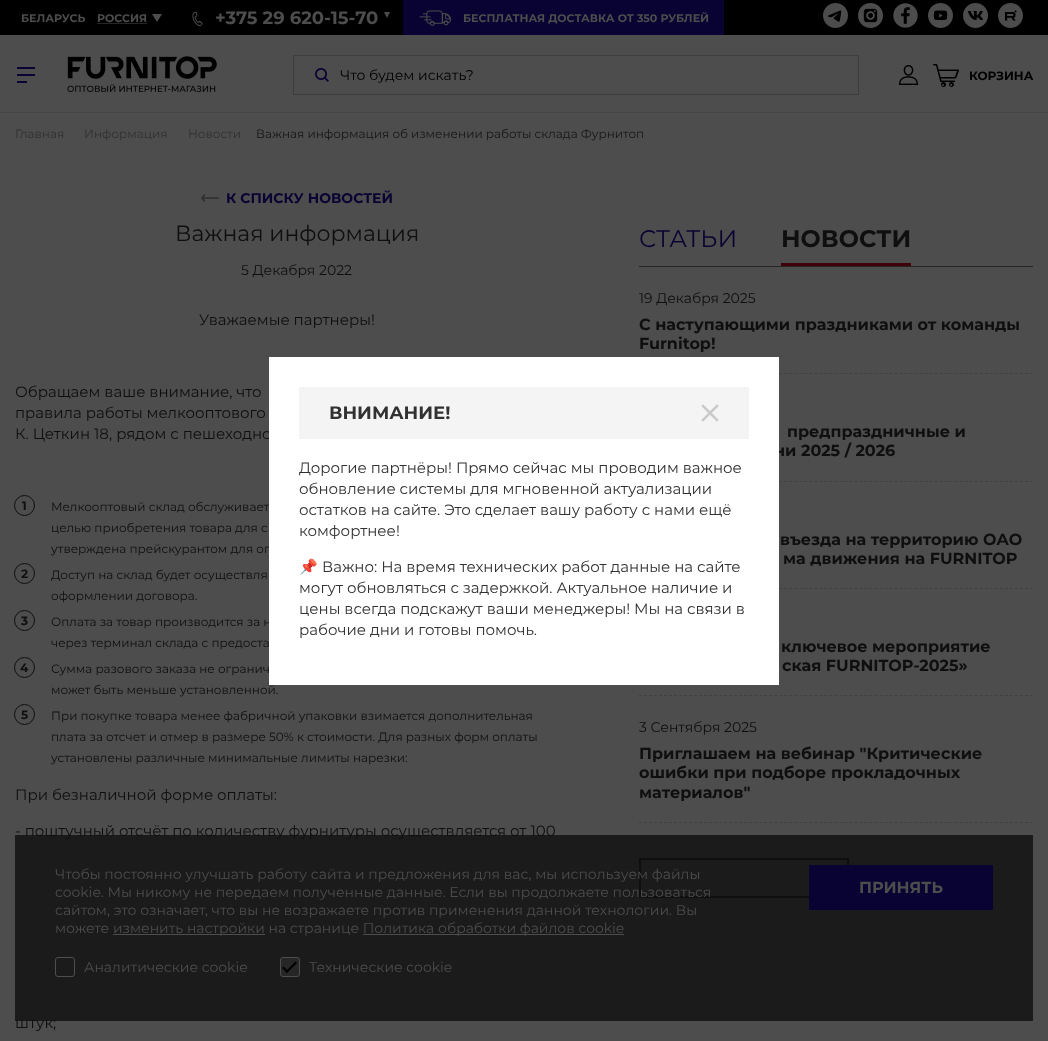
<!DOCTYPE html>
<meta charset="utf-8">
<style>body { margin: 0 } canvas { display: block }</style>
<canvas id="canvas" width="1048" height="1041"></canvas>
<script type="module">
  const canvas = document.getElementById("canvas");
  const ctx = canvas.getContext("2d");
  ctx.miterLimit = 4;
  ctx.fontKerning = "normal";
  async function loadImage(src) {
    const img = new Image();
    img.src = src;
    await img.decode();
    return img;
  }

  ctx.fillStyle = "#4d4d4d";
  ctx.fillRect(0, 0, 1048, 1041);
  ctx.fillStyle = "#454545";
  ctx.fillRect(0, 112, 1048, 1);
  ctx.fillStyle = "#000000";
  ctx.fillRect(0, 0, 1048, 35);
  ctx.font = "bold 11px Montserrat";
  ctx.fillStyle = "#4d4d4d";
  ctx.fillText("БЕЛАРУСЬ", 21, 22);
  ctx.fillText("РОССИЯ", 97, 22);
  ctx.beginPath();
  ctx.moveTo(97.5, 23.5);
  ctx.lineTo(147.5, 23.5);
  ctx.strokeStyle = "#4d4d4d";
  ctx.setLineDash([1, 1]);
  ctx.stroke();
  ctx.beginPath();
  ctx.moveTo(152, 14);
  ctx.lineTo(162, 14);
  ctx.lineTo(157, 22);
  ctx.closePath();
  ctx.fill();
  ctx.drawImage(await loadImage("img1.png"), 192, 12, 11, 14);
  ctx.font = "bold 18px Montserrat";
  ctx.fillText("+375 29 620-15-70", 215, 24);
  ctx.beginPath();
  ctx.moveTo(384, 12);
  ctx.lineTo(390, 12);
  ctx.lineTo(387, 18);
  ctx.closePath();
  ctx.fill();
  ctx.fillStyle = "#090333";
  ctx.fillRect(403, 0, 321, 35);
  ctx.drawImage(await loadImage("img2.png"), 419, 10, 33, 16);
  ctx.font = "bold 11px Montserrat";
  ctx.fillStyle = "#4d4d4d";
  ctx.fillText("БЕСПЛАТНАЯ ДОСТАВКА ОТ 350 РУБЛЕЙ", 463, 22);
  ctx.drawImage(await loadImage("img3.png"), 823, 3, 25, 25);
  ctx.drawImage(await loadImage("img4.png"), 858, 3, 25, 25);
  ctx.drawImage(await loadImage("img5.png"), 893, 3, 25, 25);
  ctx.drawImage(await loadImage("img6.png"), 928, 3, 25, 25);
  ctx.drawImage(await loadImage("img7.png"), 963, 3, 25, 25);
  ctx.drawImage(await loadImage("img8.png"), 998, 3, 25, 25);
  ctx.fillStyle = "#090333";
  ctx.fillRect(17, 74, 18, 2);
  ctx.fillRect(17, 67, 18, 2);
  ctx.fillRect(17, 81, 10, 2);
  ctx.drawImage(await loadImage("img9.png"), 67, 56, 150, 36);
  ctx.strokeStyle = "#3d3d3d";
  ctx.setLineDash([]);
  ctx.strokeRect(293.5, 55.5, 565, 39);
  ctx.drawImage(await loadImage("img10.png"), 315, 68, 14, 14);
  ctx.font = "14px Montserrat";
  ctx.fillStyle = "#000000";
  ctx.fillText("Что будем искать?", 340, 80);
  ctx.drawImage(await loadImage("img11.png"), 899, 65, 19, 20);
  ctx.drawImage(await loadImage("img12.png"), 933, 64, 26, 23);
  ctx.font = "bold 12px Montserrat";
  ctx.fillText("КОРЗИНА", 969, 80);
  ctx.font = "12px Montserrat";
  ctx.fillStyle = "#313131";
  ctx.fillText("Главная", 15, 138);
  ctx.fillText("Информация", 84, 138);
  ctx.fillText("Новости", 188, 138);
  ctx.fillStyle = "#161616";
  ctx.fillText("Важная информация об изменении работы склада Фурнитоп", 256, 138);
  ctx.beginPath();
  ctx.moveTo(202, 198);
  ctx.lineTo(218.5, 198);
  ctx.closePath();
  ctx.moveTo(202, 198);
  ctx.lineTo(204.5, 195);
  ctx.closePath();
  ctx.moveTo(202, 198);
  ctx.lineTo(204.5, 201);
  ctx.closePath();
  ctx.strokeStyle = "#2f2f2f";
  ctx.lineWidth = 1.6;
  ctx.lineCap = "round";
  ctx.lineJoin = "round";
  ctx.stroke();
  ctx.font = "bold 14px Montserrat";
  ctx.fillStyle = "#090333";
  ctx.fillText("К СПИСКУ НОВОСТЕЙ", 226, 203);
  ctx.font = "22px Montserrat";
  ctx.fillStyle = "#0f0f0f";
  ctx.fillText("Важная информация", 175, 241);
  ctx.font = "14px Montserrat";
  ctx.fillText("5 Декабря 2022", 241, 275);
  ctx.font = "15px Montserrat";
  ctx.fillText("Уважаемые партнеры!", 199, 325);
  ctx.fillText("Обращаем ваше внимание, что", 15, 397);
  ctx.fillText("правила работы мелкооптового", 15, 418);
  ctx.fillText("К. Цеткин 18, рядом с пешеходно", 15, 439);
  ctx.beginPath();
  ctx.arc(24.5, 505.5, 10, 0, Math.PI * 2);
  ctx.strokeStyle = "#0f0f0f";
  ctx.lineWidth = 1;
  ctx.stroke();
  ctx.font = "bold 12px Montserrat";
  ctx.fillText("1", 22, 510);
  ctx.font = "12px Montserrat";
  ctx.fillText("Мелкооптовый склад обслуживает", 51, 511);
  ctx.fillText("целью приобретения товара для с", 51, 532);
  ctx.fillText("утверждена прейскурантом для оп", 51, 553);
  ctx.beginPath();
  ctx.arc(24.5, 573.5, 10, 0, Math.PI * 2);
  ctx.stroke();
  ctx.font = "bold 12px Montserrat";
  ctx.fillText("2", 21, 578);
  ctx.font = "12px Montserrat";
  ctx.fillText("Доступ на склад будет осуществля", 51, 579);
  ctx.fillText("оформлении договора.", 51, 600);
  ctx.beginPath();
  ctx.arc(24.5, 620.5, 10, 0, Math.PI * 2);
  ctx.stroke();
  ctx.font = "bold 12px Montserrat";
  ctx.fillText("3", 21, 625);
  ctx.font = "12px Montserrat";
  ctx.fillText("Оплата за товар производится за н", 51, 626);
  ctx.fillText("через терминал склада с предоста", 51, 647);
  ctx.beginPath();
  ctx.arc(24.5, 667.5, 10, 0, Math.PI * 2);
  ctx.stroke();
  ctx.font = "bold 12px Montserrat";
  ctx.fillText("4", 20, 672);
  ctx.font = "12px Montserrat";
  ctx.fillText("Сумма разового заказа не огранич", 51, 673);
  ctx.fillText("может быть меньше установленной.", 51, 694);
  ctx.beginPath();
  ctx.arc(24.5, 714.5, 10, 0, Math.PI * 2);
  ctx.stroke();
  ctx.font = "bold 12px Montserrat";
  ctx.fillText("5", 21, 719);
  ctx.font = "12px Montserrat";
  ctx.fillText("При покупке товара менее фабричной упаковки взимается дополнительная", 51, 720);
  ctx.fillText("плата за отсчет и отмер в размере 50% к стоимости. Для разных форм оплаты", 51, 741);
  ctx.fillText("установлены различные минимальные лимиты нарезки:", 51, 762);
  ctx.font = "15px Montserrat";
  ctx.fillText("При безналичной форме оплаты:", 15, 800);
  ctx.fillText("- поштучный отсчёт по количеству фурнитуры осуществляется от 100", 15, 836);
  ctx.fillText("штук;", 15, 1028);
  ctx.font = "24px Montserrat";
  ctx.fillStyle = "#090333";
  ctx.fillText("СТАТЬИ", 639, 247);
  ctx.fillStyle = "#3e0108";
  ctx.fillRect(781, 263, 130, 3);
  ctx.font = "bold 24px Montserrat";
  ctx.fillStyle = "#0f0f0f";
  ctx.fillText("НОВОСТИ", 781, 247);
  ctx.fillStyle = "#262626";
  ctx.fillRect(639, 266, 394, 1);
  ctx.beginPath();
  ctx.moveTo(639, 373.5);
  ctx.lineTo(1033, 373.5);
  ctx.strokeStyle = "#414142";
  ctx.lineCap = "butt";
  ctx.lineJoin = "miter";
  ctx.setLineDash([3, 2.01]);
  ctx.stroke();
  ctx.font = "14px Montserrat";
  ctx.fillStyle = "#0f0f0f";
  ctx.fillText("19 Декабря 2025", 639, 303);
  ctx.font = "bold 16px Montserrat";
  ctx.fillText("С наступающими праздниками от команды", 639, 330);
  ctx.fillText("Furnitop!", 639, 349);
  ctx.beginPath();
  ctx.moveTo(639, 481.5);
  ctx.lineTo(1033, 481.5);
  ctx.stroke();
  ctx.fillText("предпраздничные и", 787, 437);
  ctx.fillText("ни 2025 / 2026", 774, 456);
  ctx.beginPath();
  ctx.moveTo(639, 588.5);
  ctx.lineTo(1033, 588.5);
  ctx.stroke();
  ctx.fillText("въезда на территорию ОАО", 780, 545);
  ctx.fillText("ма движения на FURNITOP", 783, 564);
  ctx.beginPath();
  ctx.moveTo(639, 695.5);
  ctx.lineTo(1033, 695.5);
  ctx.stroke();
  ctx.fillText("ключевое мероприятие", 781, 652);
  ctx.fillText("ская FURNITOP-2025»", 782, 671);
  ctx.beginPath();
  ctx.moveTo(639, 822.5);
  ctx.lineTo(1033, 822.5);
  ctx.stroke();
  ctx.font = "14px Montserrat";
  ctx.fillText("3 Сентября 2025", 639, 732);
  ctx.font = "bold 16px Montserrat";
  ctx.fillText("Приглашаем на вебинар \"Критические", 639, 759);
  ctx.fillText("ошибки при подборе прокладочных", 639, 778);
  ctx.fillText("материалов\"", 639, 798);
  ctx.strokeStyle = "#0f0f0f";
  ctx.lineWidth = 2;
  ctx.setLineDash([]);
  ctx.strokeRect(640, 859, 208, 38);
  ctx.fillStyle = "rgba(15, 15, 15, 0.8)";
  ctx.fillRect(15, 835, 1018, 186);
  ctx.font = "14px Montserrat";
  ctx.fillStyle = "#4d4d4d";
  ctx.fillText("Чтобы постоянно улучшать работу сайта и предложения для вас, мы используем файлы", 55, 879);
  ctx.fillText("cookie. Мы никому не передаем полученные данные. Если вы продолжаете пользоваться", 55, 897);
  ctx.fillText("сайтом, это означает, что вы не возражаете против применения данной технологии. Вы", 55, 915);
  ctx.fillText("можете", 55, 933);
  ctx.fillRect(113, 934, 152, 1);
  ctx.fillText("изменить настройки на странице Политика", 113, 933);
  ctx.fillRect(363, 934, 261, 1);
  ctx.fillText("обработки файлов cookie", 438, 933);
  ctx.beginPath();
  ctx.roundRect(55.5, 957.5, 19, 19, 2.5);
  ctx.strokeStyle = "#4d4d4d";
  ctx.lineWidth = 1;
  ctx.stroke();
  ctx.fillText("Аналитические cookie", 84, 972);
  ctx.fillStyle = "#262626";
  ctx.beginPath();
  ctx.roundRect(280.5, 957.5, 19, 19, 2.5);
  ctx.fill();
  ctx.stroke();
  ctx.fillStyle = "#000000";
  ctx.beginPath();
  ctx.moveTo(285.5, 971.5);
  ctx.lineTo(295.5, 961.5);
  ctx.lineTo(297, 963);
  ctx.lineTo(287, 973);
  ctx.closePath();
  ctx.fill();
  ctx.beginPath();
  ctx.moveTo(282, 968);
  ctx.lineTo(283.5, 966.5);
  ctx.lineTo(288.5, 971.5);
  ctx.lineTo(287, 973);
  ctx.closePath();
  ctx.fill();
  ctx.fillStyle = "#4d4d4d";
  ctx.fillText("Технические cookie", 309, 972);
  ctx.fillStyle = "#090333";
  ctx.fillRect(809, 865, 184, 45);
  ctx.font = "bold 16px Montserrat";
  ctx.fillStyle = "#4d4d4d";
  ctx.fillText("ПРИНЯТЬ", 859, 893);
  ctx.fillStyle = "#ffffff";
  ctx.fillRect(269, 357, 510, 328);
  ctx.fillStyle = "#f4f4f4";
  ctx.fillRect(299, 387, 450, 52);
  ctx.font = "bold 18px Montserrat";
  ctx.fillStyle = "#313131";
  ctx.fillText("ВНИМАНИЕ!", 329, 419);
  ctx.drawImage(await loadImage("img13.png"), 701, 404, 18, 18);
  ctx.font = "15px Montserrat";
  ctx.fillText("Дорогие партнёры! Прямо сейчас мы проводим важное", 299, 473);
  ctx.fillText("обновление системы для мгновенной актуализации", 299, 494);
  ctx.fillText("остатков на сайте. Это сделает вашу работу с нами ещё", 299, 515);
  ctx.fillText("комфортнее!", 299, 536);
  ctx.font = "15px Noto Color Emoji";
  ctx.fillText("📌", 299, 572);
  ctx.font = "15px Montserrat";
  ctx.fillText("Важно: На время технических работ данные на сайте", 322, 572);
  ctx.fillText("могут обновляться с задержкой. Актуальное наличие и", 299, 593);
  ctx.fillText("цены всегда подскажут ваши менеджеры! Мы на связи в", 299, 614);
  ctx.fillText("рабочие дни и готовы помочь.", 299, 635);
</script>
